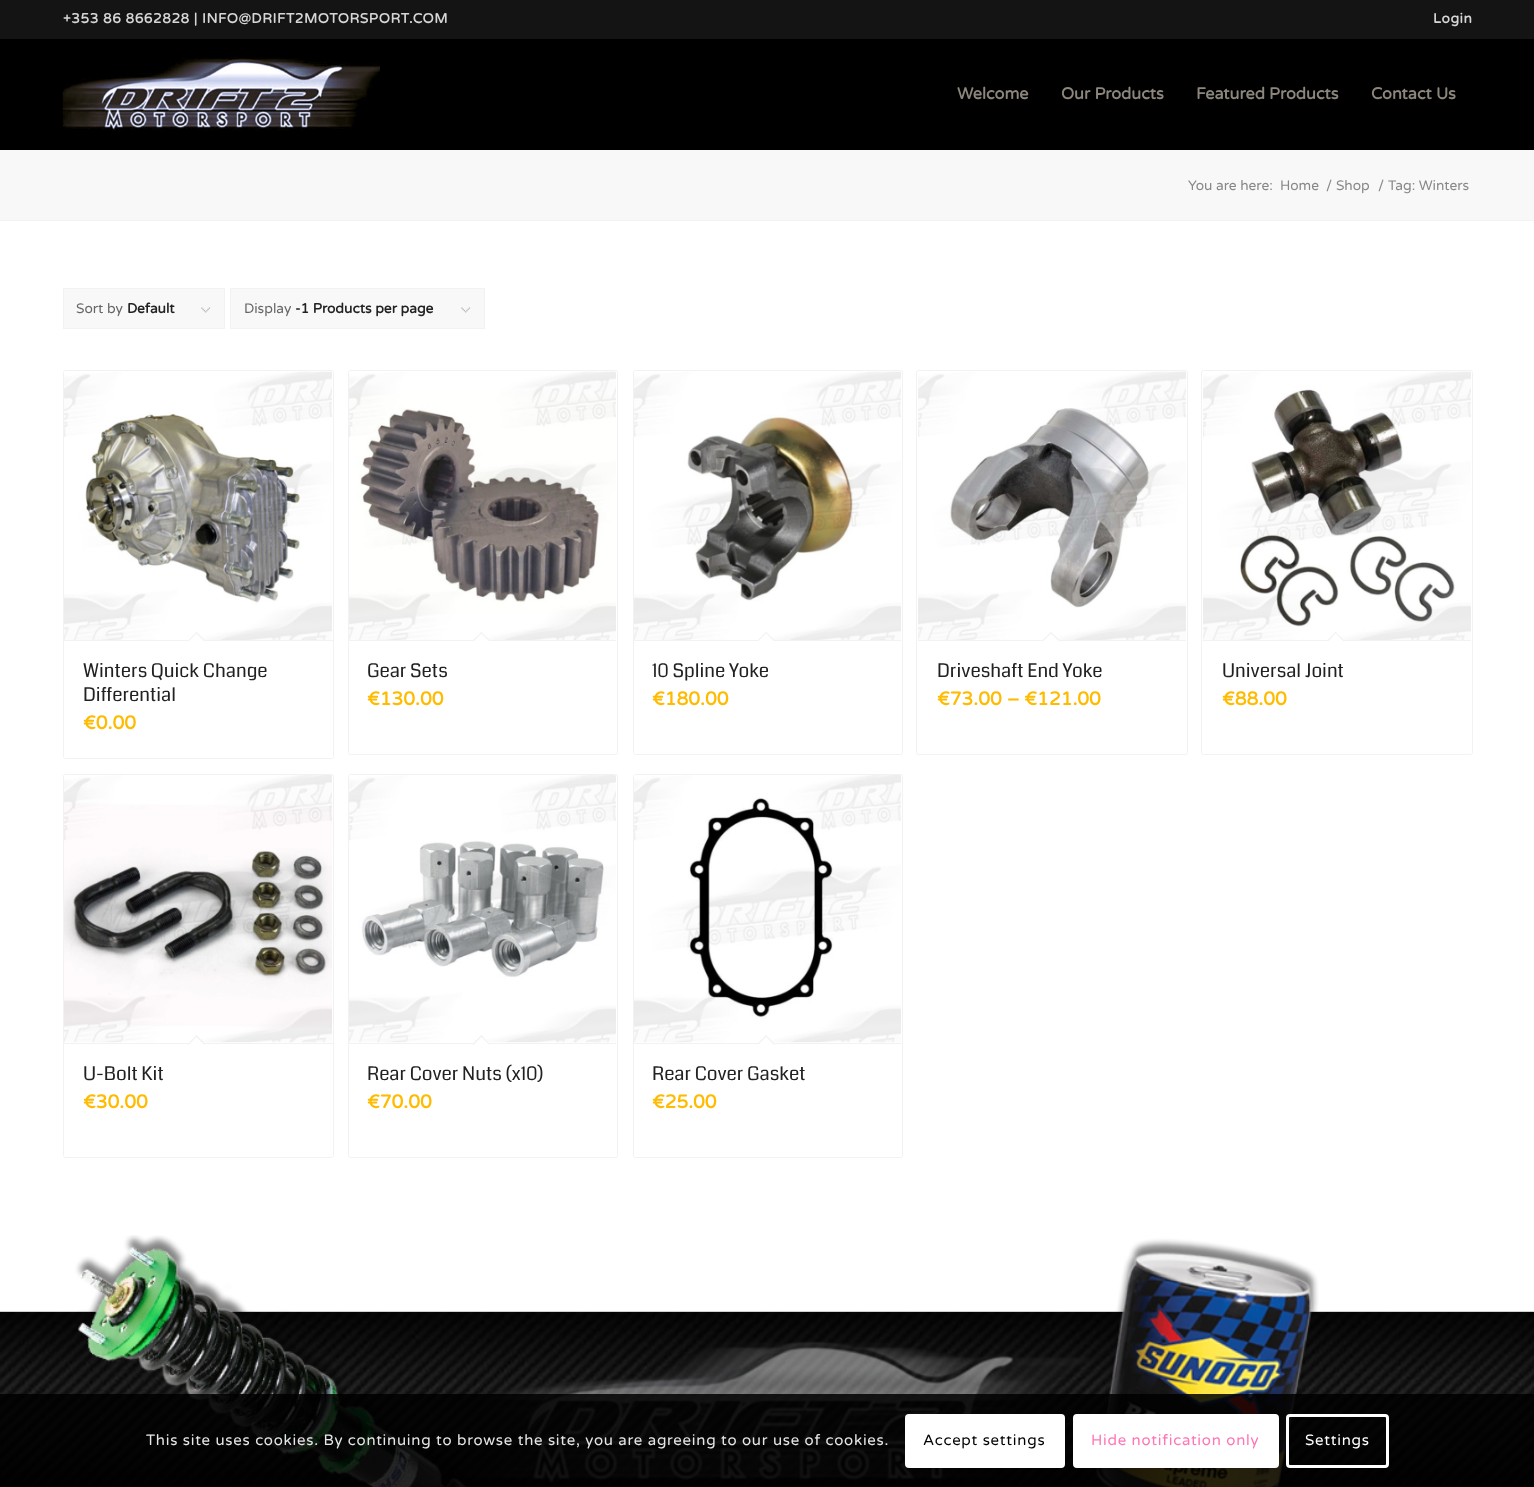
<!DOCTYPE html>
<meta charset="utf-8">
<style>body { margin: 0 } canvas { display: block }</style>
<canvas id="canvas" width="1534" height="1487"></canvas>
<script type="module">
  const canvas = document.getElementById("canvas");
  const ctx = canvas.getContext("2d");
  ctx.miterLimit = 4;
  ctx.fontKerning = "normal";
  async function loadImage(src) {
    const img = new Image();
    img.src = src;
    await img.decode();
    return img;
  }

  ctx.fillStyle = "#ffffff";
  ctx.fillRect(0, 0, 1534, 1487);
  ctx.fillStyle = "#141414";
  ctx.fillRect(0, 0, 1534, 39);
  ctx.letterSpacing = "0.55px";
  ctx.font = "bold 13.75px Varela Round";
  ctx.fillStyle = "#d6d6d6";
  ctx.fillText("+353 86 8662828 | INFO@DRIFT2MOTORSPORT.COM", 63, 23);
  ctx.fillText("Login", 1433, 23);
  ctx.fillStyle = "#000000";
  ctx.fillRect(0, 39, 1534, 111);
  ctx.drawImage(await loadImage("img1.png"), 62, 57, 318, 74);
  ctx.letterSpacing = "0px";
  ctx.font = "bold 16.25px Varela Round";
  ctx.fillStyle = "#8c867d";
  ctx.fillText("Welcome", 957, 99);
  ctx.fillText("Our Products", 1061, 99);
  ctx.fillText("Featured Products", 1196, 99);
  ctx.fillText("Contact Us", 1371, 99);
  ctx.fillStyle = "#f8f8f8";
  ctx.fillRect(0, 150, 1534, 70);
  ctx.font = "13.75px Varela Round";
  ctx.fillStyle = "#888888";
  ctx.fillText("You are here:", 1188, 190);
  ctx.fillText("Home", 1280, 190);
  ctx.fillText("/", 1326, 190);
  ctx.fillText("Shop", 1336, 190);
  ctx.fillText("/", 1378, 190);
  ctx.fillText("Tag: Winters", 1388, 190);
  ctx.fillStyle = "#f2f2f2";
  ctx.fillRect(0, 220, 1534, 1);
  ctx.fillStyle = "#f8f8f8";
  ctx.fillRect(64, 289, 160, 39);
  ctx.drawImage(await loadImage("img2.png"), 201, 307, 10, 6);
  ctx.strokeStyle = "#f2f2f2";
  ctx.strokeRect(63.5, 288.5, 161, 40);
  ctx.fillStyle = "#666666";
  ctx.fillText("Sort by", 76, 313);
  ctx.font = "bold 13.75px Varela Round";
  ctx.fillStyle = "#222222";
  ctx.fillText("Default", 127, 313);
  ctx.fillStyle = "#f8f8f8";
  ctx.fillRect(231, 289, 253, 39);
  ctx.drawImage(await loadImage("img2.png"), 461, 307, 10, 6);
  ctx.strokeRect(230.5, 288.5, 254, 40);
  ctx.font = "13.75px Varela Round";
  ctx.fillStyle = "#666666";
  ctx.fillText("Display", 244, 313);
  ctx.font = "bold 13.75px Varela Round";
  ctx.fillStyle = "#222222";
  ctx.fillText("-1 Products per page", 295, 313);
  ctx.beginPath();
  ctx.roundRect(63.5, 370.5, 270, 388, 2);
  ctx.stroke();
  ctx.drawImage(await loadImage("img3.png"), 64, 371, 268, 269);
  ctx.fillStyle = "#ffffff";
  ctx.beginPath();
  ctx.roundRect(64, 640, 269, 118, [0, 0, 1, 1]);
  ctx.fill();
  ctx.fillStyle = "#f2f2f2";
  ctx.fillRect(64, 640, 269, 1);
  ctx.fillStyle = "#ffffff";
  ctx.beginPath();
  ctx.moveTo(196.5, 632);
  ctx.lineTo(205.5, 640.5);
  ctx.lineTo(196.5, 649.5);
  ctx.lineTo(188, 640.5);
  ctx.closePath();
  ctx.fill();
  ctx.fillStyle = "#f2f2f2";
  ctx.beginPath();
  ctx.moveTo(196.5, 632);
  ctx.lineTo(205.5, 640.5);
  ctx.lineTo(204.5, 641.5);
  ctx.lineTo(195.5, 632.5);
  ctx.closePath();
  ctx.fill();
  ctx.beginPath();
  ctx.moveTo(196.5, 632);
  ctx.lineTo(197.5, 632.5);
  ctx.lineTo(188.5, 641.5);
  ctx.lineTo(188, 640.5);
  ctx.closePath();
  ctx.fill();
  ctx.font = "18.75px Coda";
  ctx.fillStyle = "#222222";
  ctx.fillText("Winters Quick Change", 83, 677);
  ctx.fillText("Differential", 83, 701);
  ctx.font = "bold 18.75px Varela Round";
  ctx.fillStyle = "#ffbb00";
  ctx.fillText("€0.00", 83, 729);
  ctx.beginPath();
  ctx.roundRect(348.5, 370.5, 269, 384, 2);
  ctx.stroke();
  ctx.drawImage(await loadImage("img4.png"), 349, 371, 267, 269);
  ctx.fillStyle = "#ffffff";
  ctx.beginPath();
  ctx.roundRect(349, 640, 267, 114, [0, 0, 1, 1]);
  ctx.fill();
  ctx.fillStyle = "#f2f2f2";
  ctx.fillRect(349, 640, 267, 1);
  ctx.fillStyle = "#ffffff";
  ctx.beginPath();
  ctx.moveTo(481.5, 632);
  ctx.lineTo(490, 640.5);
  ctx.lineTo(481.5, 649.5);
  ctx.lineTo(472.5, 640.5);
  ctx.closePath();
  ctx.fill();
  ctx.fillStyle = "#f2f2f2";
  ctx.beginPath();
  ctx.moveTo(481.5, 632);
  ctx.lineTo(490, 640.5);
  ctx.lineTo(489.5, 641.5);
  ctx.lineTo(480.5, 632.5);
  ctx.closePath();
  ctx.fill();
  ctx.beginPath();
  ctx.moveTo(481.5, 632);
  ctx.lineTo(482.5, 632.5);
  ctx.lineTo(473.5, 641.5);
  ctx.lineTo(472.5, 640.5);
  ctx.closePath();
  ctx.fill();
  ctx.font = "18.75px Coda";
  ctx.fillStyle = "#222222";
  ctx.fillText("Gear Sets", 367, 677);
  ctx.font = "bold 18.75px Varela Round";
  ctx.fillStyle = "#ffbb00";
  ctx.fillText("€130.00", 367, 705);
  ctx.beginPath();
  ctx.roundRect(633.5, 370.5, 269, 384, 2);
  ctx.stroke();
  ctx.drawImage(await loadImage("img5.png"), 634, 371, 267, 269);
  ctx.fillStyle = "#ffffff";
  ctx.beginPath();
  ctx.roundRect(634, 640, 267, 114, [0, 0, 1, 1]);
  ctx.fill();
  ctx.fillStyle = "#f2f2f2";
  ctx.fillRect(634, 640, 267, 1);
  ctx.fillStyle = "#ffffff";
  ctx.beginPath();
  ctx.moveTo(766, 632);
  ctx.lineTo(775, 640.5);
  ctx.lineTo(766, 649.5);
  ctx.lineTo(757.5, 640.5);
  ctx.closePath();
  ctx.fill();
  ctx.fillStyle = "#f2f2f2";
  ctx.beginPath();
  ctx.moveTo(766, 632);
  ctx.lineTo(775, 640.5);
  ctx.lineTo(774, 641.5);
  ctx.lineTo(765.5, 632.5);
  ctx.closePath();
  ctx.fill();
  ctx.beginPath();
  ctx.moveTo(766, 632);
  ctx.lineTo(767, 632.5);
  ctx.lineTo(758, 641.5);
  ctx.lineTo(757.5, 640.5);
  ctx.closePath();
  ctx.fill();
  ctx.font = "18.75px Coda";
  ctx.fillStyle = "#222222";
  ctx.fillText("10 Spline Yoke", 652, 677);
  ctx.font = "bold 18.75px Varela Round";
  ctx.fillStyle = "#ffbb00";
  ctx.fillText("€180.00", 652, 705);
  ctx.beginPath();
  ctx.roundRect(916.5, 370.5, 271, 384, 2);
  ctx.stroke();
  ctx.drawImage(await loadImage("img6.png"), 918, 371, 268, 269);
  ctx.fillStyle = "#f2f2f2";
  ctx.fillRect(918, 640, 268, 1);
  ctx.fillStyle = "#ffffff";
  ctx.beginPath();
  ctx.moveTo(1051, 632);
  ctx.lineTo(1060, 640.5);
  ctx.lineTo(1051, 649.5);
  ctx.lineTo(1042, 640.5);
  ctx.closePath();
  ctx.fill();
  ctx.fillStyle = "#f2f2f2";
  ctx.beginPath();
  ctx.moveTo(1051, 632);
  ctx.lineTo(1060, 640.5);
  ctx.lineTo(1059, 641.5);
  ctx.lineTo(1050, 632.5);
  ctx.closePath();
  ctx.fill();
  ctx.beginPath();
  ctx.moveTo(1051, 632);
  ctx.lineTo(1052, 632.5);
  ctx.lineTo(1043, 641.5);
  ctx.lineTo(1042, 640.5);
  ctx.closePath();
  ctx.fill();
  ctx.font = "18.75px Coda";
  ctx.fillStyle = "#222222";
  ctx.fillText("Driveshaft End Yoke", 937, 677);
  ctx.font = "bold 18.75px Varela Round";
  ctx.fillStyle = "#ffbb00";
  ctx.fillText("€73.00 – €121.00", 937, 705);
  ctx.beginPath();
  ctx.roundRect(1201.5, 370.5, 271, 384, 2);
  ctx.stroke();
  ctx.drawImage(await loadImage("img7.png"), 1203, 371, 268, 269);
  ctx.fillStyle = "#f2f2f2";
  ctx.fillRect(1203, 640, 268, 1);
  ctx.fillStyle = "#ffffff";
  ctx.beginPath();
  ctx.moveTo(1335.5, 632);
  ctx.lineTo(1344.5, 640.5);
  ctx.lineTo(1335.5, 649.5);
  ctx.lineTo(1327, 640.5);
  ctx.closePath();
  ctx.fill();
  ctx.fillStyle = "#f2f2f2";
  ctx.beginPath();
  ctx.moveTo(1335.5, 632);
  ctx.lineTo(1344.5, 640.5);
  ctx.lineTo(1343.5, 641.5);
  ctx.lineTo(1335, 632.5);
  ctx.closePath();
  ctx.fill();
  ctx.beginPath();
  ctx.moveTo(1335.5, 632);
  ctx.lineTo(1336.5, 632.5);
  ctx.lineTo(1328, 641.5);
  ctx.lineTo(1327, 640.5);
  ctx.closePath();
  ctx.fill();
  ctx.font = "18.75px Coda";
  ctx.fillStyle = "#222222";
  ctx.fillText("Universal Joint", 1222, 677);
  ctx.font = "bold 18.75px Varela Round";
  ctx.fillStyle = "#ffbb00";
  ctx.fillText("€88.00", 1222, 705);
  ctx.beginPath();
  ctx.roundRect(63.5, 774.5, 270, 383, 2);
  ctx.stroke();
  ctx.drawImage(await loadImage("img8.png"), 64, 775, 268, 268);
  ctx.fillStyle = "#f2f2f2";
  ctx.fillRect(64, 1043, 269, 1);
  ctx.fillStyle = "#ffffff";
  ctx.beginPath();
  ctx.moveTo(196.5, 1035);
  ctx.lineTo(205.5, 1044);
  ctx.lineTo(196.5, 1053);
  ctx.lineTo(188, 1044);
  ctx.closePath();
  ctx.fill();
  ctx.fillStyle = "#f2f2f2";
  ctx.beginPath();
  ctx.moveTo(196.5, 1035);
  ctx.lineTo(205.5, 1044);
  ctx.lineTo(204.5, 1045);
  ctx.lineTo(195.5, 1036);
  ctx.closePath();
  ctx.fill();
  ctx.beginPath();
  ctx.moveTo(196.5, 1035);
  ctx.lineTo(197.5, 1036);
  ctx.lineTo(188.5, 1045);
  ctx.lineTo(188, 1044);
  ctx.closePath();
  ctx.fill();
  ctx.font = "18.75px Coda";
  ctx.fillStyle = "#222222";
  ctx.fillText("U-Bolt Kit", 83, 1080);
  ctx.font = "bold 18.75px Varela Round";
  ctx.fillStyle = "#ffbb00";
  ctx.fillText("€30.00", 83, 1108);
  ctx.beginPath();
  ctx.roundRect(348.5, 774.5, 269, 383, 2);
  ctx.stroke();
  ctx.drawImage(await loadImage("img9.png"), 349, 775, 267, 268);
  ctx.fillStyle = "#f2f2f2";
  ctx.fillRect(349, 1043, 267, 1);
  ctx.fillStyle = "#ffffff";
  ctx.beginPath();
  ctx.moveTo(481.5, 1035);
  ctx.lineTo(490, 1044);
  ctx.lineTo(481.5, 1053);
  ctx.lineTo(472.5, 1044);
  ctx.closePath();
  ctx.fill();
  ctx.fillStyle = "#f2f2f2";
  ctx.beginPath();
  ctx.moveTo(481.5, 1035);
  ctx.lineTo(490, 1044);
  ctx.lineTo(489.5, 1045);
  ctx.lineTo(480.5, 1036);
  ctx.closePath();
  ctx.fill();
  ctx.beginPath();
  ctx.moveTo(481.5, 1035);
  ctx.lineTo(482.5, 1036);
  ctx.lineTo(473.5, 1045);
  ctx.lineTo(472.5, 1044);
  ctx.closePath();
  ctx.fill();
  ctx.font = "18.75px Coda";
  ctx.fillStyle = "#222222";
  ctx.fillText("Rear Cover Nuts (x10)", 367, 1080);
  ctx.font = "bold 18.75px Varela Round";
  ctx.fillStyle = "#ffbb00";
  ctx.fillText("€70.00", 367, 1108);
  ctx.beginPath();
  ctx.roundRect(633.5, 774.5, 269, 383, 2);
  ctx.stroke();
  ctx.drawImage(await loadImage("img10.png"), 634, 775, 267, 268);
  ctx.fillStyle = "#f2f2f2";
  ctx.fillRect(634, 1043, 267, 1);
  ctx.fillStyle = "#ffffff";
  ctx.beginPath();
  ctx.moveTo(766, 1035);
  ctx.lineTo(775, 1044);
  ctx.lineTo(766, 1053);
  ctx.lineTo(757.5, 1044);
  ctx.closePath();
  ctx.fill();
  ctx.fillStyle = "#f2f2f2";
  ctx.beginPath();
  ctx.moveTo(766, 1035);
  ctx.lineTo(775, 1044);
  ctx.lineTo(774, 1045);
  ctx.lineTo(765.5, 1036);
  ctx.closePath();
  ctx.fill();
  ctx.beginPath();
  ctx.moveTo(766, 1035);
  ctx.lineTo(767, 1036);
  ctx.lineTo(758, 1045);
  ctx.lineTo(757.5, 1044);
  ctx.closePath();
  ctx.fill();
  ctx.font = "18.75px Coda";
  ctx.fillStyle = "#222222";
  ctx.fillText("Rear Cover Gasket", 652, 1080);
  ctx.font = "bold 18.75px Varela Round";
  ctx.fillStyle = "#ffbb00";
  ctx.fillText("€25.00", 652, 1108);
  ctx.drawImage(await loadImage("img11.png"), 0, 1235, 1534, 252);
  ctx.fillStyle = "rgba(0, 0, 0, 0.85)";
  ctx.fillRect(0, 1394, 1534, 93);
  ctx.letterSpacing = "0.75px";
  ctx.font = "15px Varela Round";
  ctx.fillStyle = "#e6e6e6";
  ctx.fillText("This site uses cookies. By continuing to browse the site, you are agreeing to our use of cookies.", 146, 1445);
  ctx.fillStyle = "#ffffff";
  ctx.beginPath();
  ctx.roundRect(905, 1414, 160, 54, 4);
  ctx.fill();
  ctx.fillStyle = "#000000";
  ctx.fillText("Accept settings", 923, 1445);
  ctx.fillStyle = "#ffffff";
  ctx.beginPath();
  ctx.roundRect(1074.5, 1415.5, 203, 51, 2.5);
  ctx.fill();
  ctx.strokeStyle = "#ffffff";
  ctx.lineWidth = 3;
  ctx.stroke();
  ctx.fillStyle = "#ff75b5";
  ctx.fillText("Hide notification only", 1091, 1445);
  ctx.beginPath();
  ctx.roundRect(1287.5, 1415.5, 100, 51, 2.5);
  ctx.stroke();
  ctx.fillStyle = "#ffffff";
  ctx.fillText("Settings", 1305, 1445);
</script>
